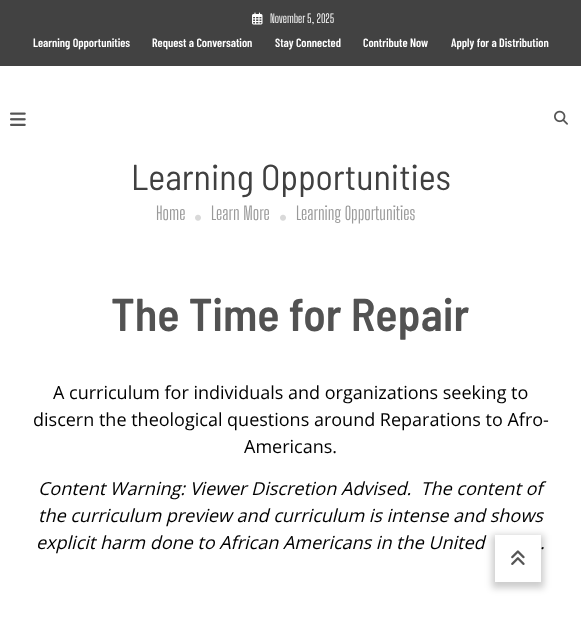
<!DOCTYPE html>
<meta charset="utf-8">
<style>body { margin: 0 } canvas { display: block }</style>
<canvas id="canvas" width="581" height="622"></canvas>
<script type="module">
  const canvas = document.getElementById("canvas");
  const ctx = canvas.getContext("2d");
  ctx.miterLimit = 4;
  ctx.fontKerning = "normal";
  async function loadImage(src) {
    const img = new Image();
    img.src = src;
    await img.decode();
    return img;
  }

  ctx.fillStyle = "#ffffff";
  ctx.fillRect(0, 0, 581, 622);
  ctx.fillStyle = "#424242";
  ctx.fillRect(0, 0, 581, 66);
  ctx.drawImage(await loadImage("img1.png"), 252, 12, 11, 13);
  ctx.font = "12px Big Shoulders Display";
  ctx.fillStyle = "#ffffff";
  ctx.fillText("November 5, 2025", 270, 23);
  ctx.font = "600 12px Barlow Condensed";
  ctx.fillText("Learning Opportunities", 33, 47);
  ctx.fillText("Request a Conversation", 152, 47);
  ctx.fillText("Stay Connected", 275, 47);
  ctx.fillText("Contribute Now", 363, 47);
  ctx.fillText("Apply for a Distribution", 451, 47);
  ctx.drawImage(await loadImage("img2.png"), 10, 112, 16, 14);
  ctx.drawImage(await loadImage("img3.png"), 554, 110, 14, 15);
  ctx.font = "36px Barlow Semi Condensed";
  ctx.fillStyle = "#404040";
  ctx.fillText("Learning Opportunities", 131, 190);
  ctx.font = "18px Big Shoulders Display";
  ctx.fillStyle = "#999999";
  ctx.fillText("Home", 156, 220);
  ctx.drawImage(await loadImage("img4.png"), 195, 214, 6, 7);
  ctx.fillText("Learn More", 211, 220);
  ctx.drawImage(await loadImage("img4.png"), 280, 214, 6, 7);
  ctx.fillText("Learning Opportunities", 296, 220);
  ctx.font = "600 46px Barlow Semi Condensed";
  ctx.fillStyle = "#525252";
  ctx.fillText("The Time for Repair", 111, 331);
  ctx.font = "18px Open Sans";
  ctx.fillStyle = "#000000";
  ctx.fillText("A curriculum for individuals and organizations seeking to", 53, 399);
  ctx.fillText("discern the theological questions around Reparations to Afro-", 33, 426);
  ctx.fillText("Americans.", 244, 453);
  ctx.font = "italic 18px Open Sans";
  ctx.fillText("Content Warning: Viewer Discretion Advised.  The content of", 38, 495);
  ctx.fillText("the curriculum preview and curriculum is intense and shows", 38, 522);
  ctx.fillText("explicit harm done to African Americans in the United", 36, 549);
  ctx.fillText(".", 540, 549);
  ctx.fillStyle = "rgba(0, 0, 0, 0.2)";
  ctx.filter = "blur(3.5px)";
  ctx.beginPath();
  ctx.rect(492, 535, 52, 53);
  ctx.fill();
  ctx.filter = "none";
  ctx.fillStyle = "#ffffff";
  ctx.fillRect(495, 535, 46, 47);
  ctx.drawImage(await loadImage("img5.png"), 511, 550, 14, 15);
</script>
